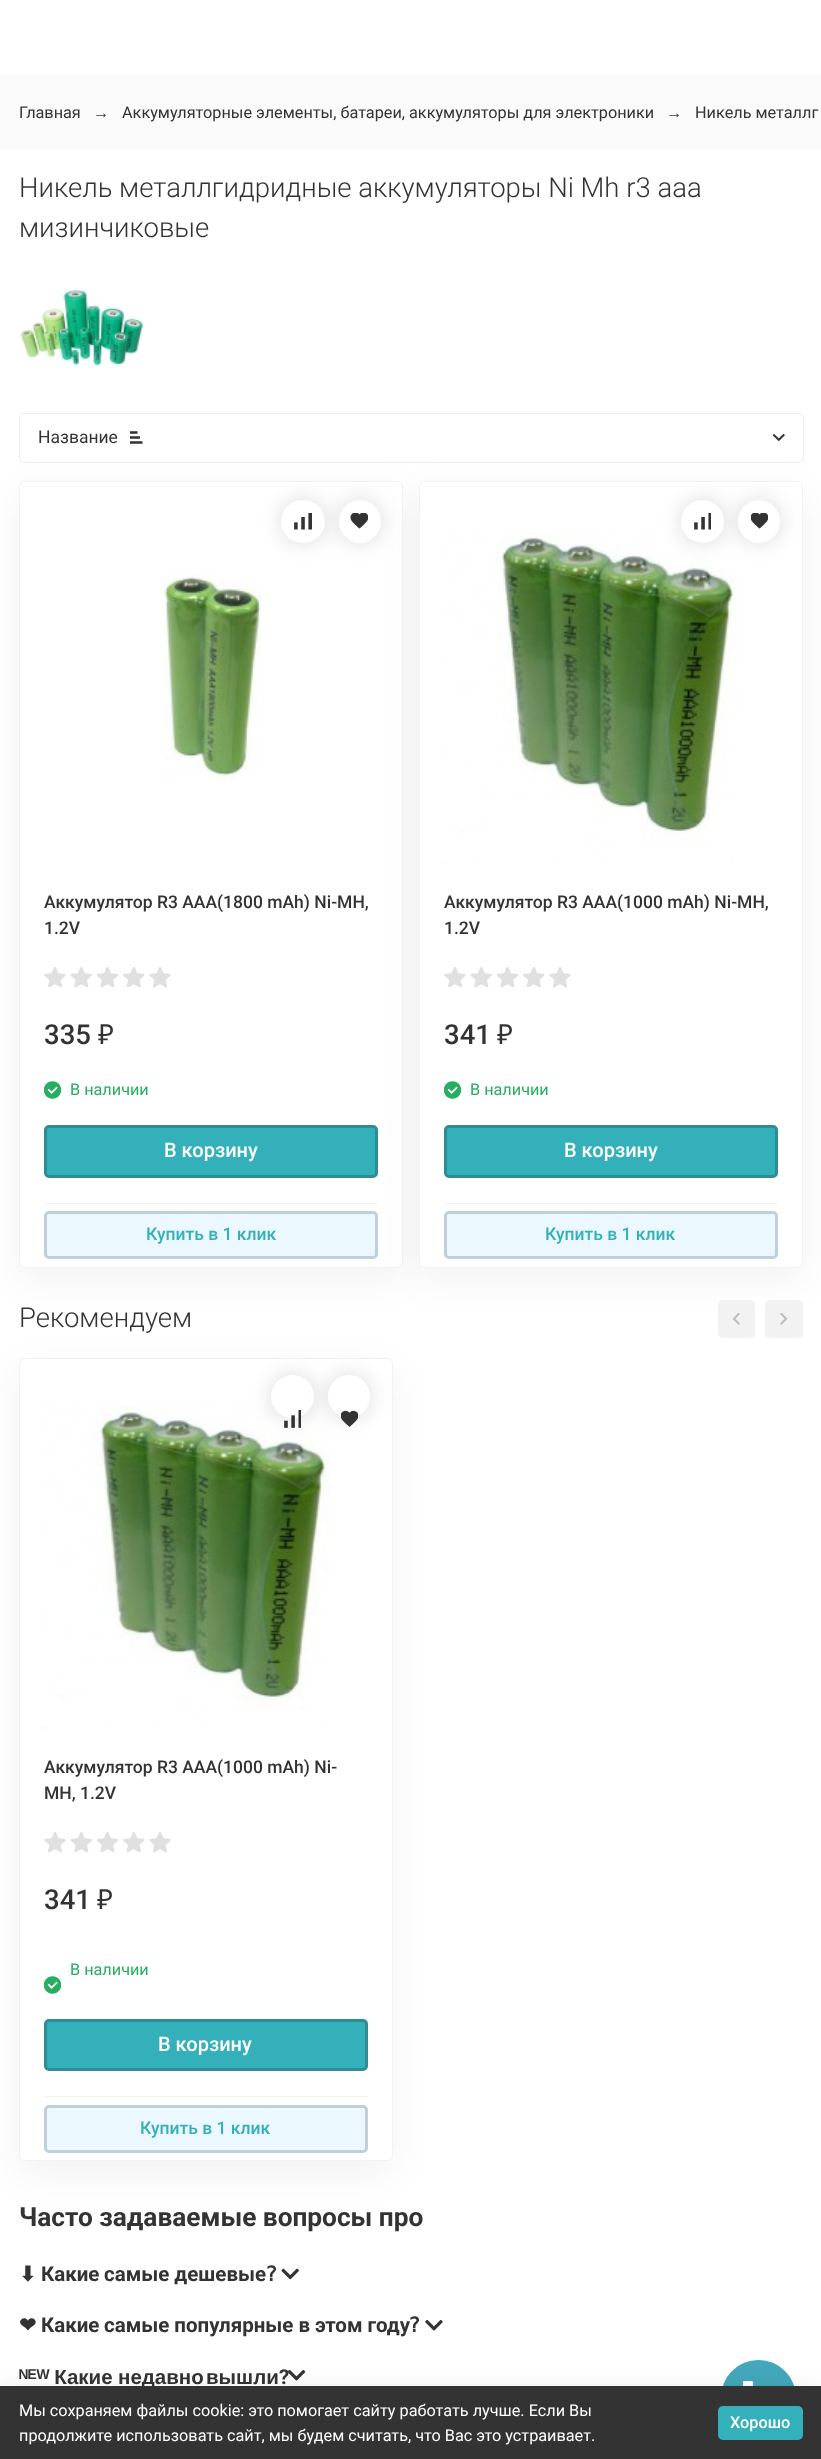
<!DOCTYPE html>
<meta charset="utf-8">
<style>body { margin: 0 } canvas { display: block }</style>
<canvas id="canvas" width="821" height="2459"></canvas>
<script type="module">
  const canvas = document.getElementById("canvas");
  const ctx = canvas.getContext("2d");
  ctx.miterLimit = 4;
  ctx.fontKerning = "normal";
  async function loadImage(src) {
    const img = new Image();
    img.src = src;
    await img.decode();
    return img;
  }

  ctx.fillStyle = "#ffffff";
  ctx.fillRect(0, 0, 821, 2459);
  ctx.fillStyle = "#fafafa";
  ctx.fillRect(0, 75, 821, 75);
  ctx.font = "16.25px Roboto";
  ctx.fillStyle = "#333333";
  ctx.fillText("Главная", 19, 118);
  ctx.font = "16.25px Liberation Sans";
  ctx.fillText("→", 93, 118);
  ctx.font = "16.25px Roboto";
  ctx.fillText("Аккумуляторные элементы, батареи, аккумуляторы для электроники", 122, 118);
  ctx.font = "16.25px Liberation Sans";
  ctx.fillText("→", 666, 118);
  ctx.font = "16.25px Roboto";
  ctx.fillText("Никель металлг", 695, 118);
  ctx.font = "300 27.5px Roboto";
  ctx.fillText("Никель металлгидридные аккумуляторы Ni Mh r3 aaa", 19, 197);
  ctx.fillText("мизинчиковые", 19, 237);
  ctx.drawImage(await loadImage("img1.png"), 20, 289, 124, 78);
  ctx.beginPath();
  ctx.roundRect(19.5, 413.5, 784, 49, 4.5);
  ctx.strokeStyle = "#ededed";
  ctx.stroke();
  ctx.font = "17.5px Roboto";
  ctx.fillText("Название", 38, 443);
  ctx.drawImage(await loadImage("img2.png"), 130, 431, 13, 13);
  ctx.drawImage(await loadImage("img3.png"), 773, 434, 12, 7);
  ctx.fillStyle = "rgba(0, 0, 0, 0.05)";
  ctx.filter = "blur(19px)";
  ctx.beginPath();
  ctx.roundRect(19, 494, 384, 786, 6);
  ctx.fill();
  ctx.filter = "none";
  ctx.fillStyle = "#ffffff";
  ctx.beginPath();
  ctx.roundRect(19.5, 481.5, 383, 786, 5.5);
  ctx.fill();
  ctx.strokeStyle = "#f2f2f2";
  ctx.stroke();
  ctx.drawImage(await loadImage("img6.png"), 163, 573, 99, 209);
  ctx.fillStyle = "rgba(0, 0, 0, 0.15)";
  ctx.filter = "blur(10.5px)";
  ctx.beginPath();
  ctx.roundRect(281, 500, 44, 43, 21.5);
  ctx.fill();
  ctx.filter = "none";
  ctx.fillStyle = "#ffffff";
  ctx.beginPath();
  ctx.roundRect(281, 500, 44, 43, 21.5);
  ctx.fill();
  ctx.fillStyle = "rgba(0, 0, 0, 0.15)";
  ctx.filter = "blur(10.5px)";
  ctx.beginPath();
  ctx.roundRect(339, 500, 42, 43, 21);
  ctx.fill();
  ctx.filter = "none";
  ctx.drawImage(await loadImage("img4.png"), 294, 513, 18, 17);
  ctx.fillStyle = "#34b0bb";
  ctx.beginPath();
  ctx.roundRect(45.5, 1126.5, 331, 50, 3.5);
  ctx.fill();
  ctx.strokeStyle = "#308c94";
  ctx.lineWidth = 3;
  ctx.stroke();
  ctx.fillStyle = "#f2f2f2";
  ctx.fillRect(44, 1203, 334, 1);
  ctx.fillStyle = "#ebf8ff";
  ctx.beginPath();
  ctx.roundRect(45.5, 1212.5, 331, 45, 3.5);
  ctx.fill();
  ctx.strokeStyle = "#bfd0da";
  ctx.stroke();
  ctx.fillStyle = "rgba(0, 0, 0, 0.05)";
  ctx.filter = "blur(19px)";
  ctx.beginPath();
  ctx.roundRect(419, 494, 384, 786, 6);
  ctx.fill();
  ctx.filter = "none";
  ctx.fillStyle = "#ffffff";
  ctx.beginPath();
  ctx.roundRect(339, 500, 42, 43, 21);
  ctx.fill();
  ctx.drawImage(await loadImage("img5.png"), 350, 513, 18, 16);
  ctx.font = "500 17.5px Roboto";
  ctx.fillStyle = "#333333";
  ctx.fillText("Аккумулятор R3 AAA(1800 mAh) Ni-MH,", 44, 908);
  ctx.fillText("1.2V", 44, 934);
  ctx.drawImage(await loadImage("img7.png"), 44, 967, 22, 21);
  ctx.drawImage(await loadImage("img8.png"), 70, 967, 22, 21);
  ctx.drawImage(await loadImage("img9.png"), 97, 967, 21, 21);
  ctx.drawImage(await loadImage("img10.png"), 123, 967, 22, 21);
  ctx.drawImage(await loadImage("img7.png"), 149, 967, 22, 21);
  ctx.font = "500 27.5px Roboto";
  ctx.fillText("335", 44, 1044);
  ctx.font = "27.5px Noto Sans";
  ctx.fillText("₽", 98, 1044);
  ctx.drawImage(await loadImage("img11.png"), 44, 1081, 17, 18);
  ctx.font = "16.25px Roboto";
  ctx.fillStyle = "#27ae60";
  ctx.fillText("В наличии", 70, 1095);
  ctx.font = "500 20px Roboto";
  ctx.fillStyle = "#ffffff";
  ctx.fillText("В корзину", 164, 1157);
  ctx.font = "500 17.5px Roboto";
  ctx.fillStyle = "#34b0bb";
  ctx.fillText("Купить в 1 клик", 146, 1240);
  ctx.fillStyle = "#ffffff";
  ctx.beginPath();
  ctx.roundRect(419.5, 481.5, 383, 786, 5.5);
  ctx.fill();
  ctx.strokeStyle = "#f2f2f2";
  ctx.lineWidth = 1;
  ctx.stroke();
  ctx.drawImage(await loadImage("img14.png"), 441, 531, 297, 333);
  ctx.fillStyle = "rgba(0, 0, 0, 0.15)";
  ctx.filter = "blur(10.5px)";
  ctx.beginPath();
  ctx.roundRect(681, 500, 43, 43, 21.5);
  ctx.fill();
  ctx.filter = "none";
  ctx.fillStyle = "#ffffff";
  ctx.beginPath();
  ctx.arc(702.5, 521.5, 21.5, 0, Math.PI * 2);
  ctx.fill();
  ctx.fillStyle = "rgba(0, 0, 0, 0.15)";
  ctx.filter = "blur(10.5px)";
  ctx.beginPath();
  ctx.roundRect(738, 500, 42, 43, 21);
  ctx.fill();
  ctx.filter = "none";
  ctx.drawImage(await loadImage("img12.png"), 694, 513, 17, 17);
  ctx.fillStyle = "#ffffff";
  ctx.beginPath();
  ctx.roundRect(738, 500, 42, 43, 21);
  ctx.fill();
  ctx.drawImage(await loadImage("img13.png"), 751, 513, 17, 16);
  ctx.fillStyle = "#333333";
  ctx.fillText("Аккумулятор R3 AAA(1000 mAh) Ni-MH,", 444, 908);
  ctx.fillText("1.2V", 444, 934);
  ctx.drawImage(await loadImage("img7.png"), 444, 967, 22, 21);
  ctx.drawImage(await loadImage("img8.png"), 470, 967, 22, 21);
  ctx.drawImage(await loadImage("img9.png"), 497, 967, 21, 21);
  ctx.drawImage(await loadImage("img10.png"), 523, 967, 22, 21);
  ctx.drawImage(await loadImage("img7.png"), 549, 967, 22, 21);
  ctx.font = "500 27.5px Roboto";
  ctx.fillText("341", 444, 1044);
  ctx.font = "27.5px Noto Sans";
  ctx.fillText("₽", 497, 1044);
  ctx.drawImage(await loadImage("img11.png"), 444, 1081, 17, 18);
  ctx.font = "16.25px Roboto";
  ctx.fillStyle = "#27ae60";
  ctx.fillText("В наличии", 470, 1095);
  ctx.fillStyle = "#34b0bb";
  ctx.beginPath();
  ctx.roundRect(445.5, 1126.5, 331, 50, 3.5);
  ctx.fill();
  ctx.strokeStyle = "#308c94";
  ctx.lineWidth = 3;
  ctx.stroke();
  ctx.font = "500 20px Roboto";
  ctx.fillStyle = "#ffffff";
  ctx.fillText("В корзину", 564, 1157);
  ctx.fillStyle = "#f2f2f2";
  ctx.fillRect(444, 1203, 334, 1);
  ctx.fillStyle = "#ebf8ff";
  ctx.beginPath();
  ctx.roundRect(445.5, 1212.5, 331, 45, 3.5);
  ctx.fill();
  ctx.strokeStyle = "#bfd0da";
  ctx.stroke();
  ctx.font = "500 17.5px Roboto";
  ctx.fillStyle = "#34b0bb";
  ctx.fillText("Купить в 1 клик", 545, 1240);
  ctx.font = "300 27.5px Roboto";
  ctx.fillStyle = "#333333";
  ctx.fillText("Рекомендуем", 19, 1327);
  ctx.fillStyle = "#f2f2f2";
  ctx.beginPath();
  ctx.roundRect(718, 1300, 37, 38, 5);
  ctx.fill();
  ctx.drawImage(await loadImage("img15.png"), 733, 1313, 7, 12);
  ctx.beginPath();
  ctx.roundRect(765, 1300, 38, 38, 5);
  ctx.fill();
  ctx.drawImage(await loadImage("img16.png"), 780, 1313, 8, 12);
  ctx.fillStyle = "rgba(0, 0, 0, 0.05)";
  ctx.filter = "blur(19px)";
  ctx.beginPath();
  ctx.roundRect(19, 1370, 374, 804, 6);
  ctx.fill();
  ctx.filter = "none";
  ctx.fillStyle = "#ffffff";
  ctx.beginPath();
  ctx.roundRect(19.5, 1358.5, 373, 802, 5.5);
  ctx.fill();
  ctx.strokeStyle = "#f2f2f2";
  ctx.lineWidth = 1;
  ctx.stroke();
  ctx.drawImage(await loadImage("img19.png"), 41, 1405, 289, 324);
  ctx.fillStyle = "rgba(0, 0, 0, 0.15)";
  ctx.filter = "blur(10.5px)";
  ctx.beginPath();
  ctx.roundRect(271, 1375, 43, 43, 21.5);
  ctx.fill();
  ctx.filter = "none";
  ctx.fillStyle = "#ffffff";
  ctx.beginPath();
  ctx.arc(292.5, 1396.5, 21.5, 0, Math.PI * 2);
  ctx.fill();
  ctx.fillStyle = "rgba(0, 0, 0, 0.15)";
  ctx.filter = "blur(10.5px)";
  ctx.beginPath();
  ctx.roundRect(328, 1375, 42, 43, 21);
  ctx.fill();
  ctx.filter = "none";
  ctx.drawImage(await loadImage("img17.png"), 284, 1410, 17, 18);
  ctx.fillStyle = "#ffffff";
  ctx.beginPath();
  ctx.roundRect(328, 1375, 42, 43, 21);
  ctx.fill();
  ctx.drawImage(await loadImage("img18.png"), 341, 1410, 17, 17);
  ctx.font = "500 17.5px Roboto";
  ctx.fillStyle = "#333333";
  ctx.fillText("Аккумулятор R3 AAA(1000 mAh) Ni-", 44, 1773);
  ctx.fillText("MH, 1.2V", 44, 1799);
  ctx.drawImage(await loadImage("img7.png"), 44, 1832, 22, 21);
  ctx.drawImage(await loadImage("img8.png"), 70, 1832, 22, 21);
  ctx.drawImage(await loadImage("img9.png"), 97, 1832, 21, 21);
  ctx.drawImage(await loadImage("img10.png"), 123, 1832, 22, 21);
  ctx.drawImage(await loadImage("img7.png"), 149, 1832, 22, 21);
  ctx.font = "500 27.5px Roboto";
  ctx.fillText("341", 44, 1909);
  ctx.font = "27.5px Noto Sans";
  ctx.fillText("₽", 97, 1909);
  ctx.font = "16.25px Roboto";
  ctx.fillStyle = "#27ae60";
  ctx.fillText("В наличии", 70, 1975);
  ctx.drawImage(await loadImage("img11.png"), 44, 1976, 17, 18);
  ctx.fillStyle = "#34b0bb";
  ctx.beginPath();
  ctx.roundRect(45.5, 2020.5, 321, 49, 3.5);
  ctx.fill();
  ctx.strokeStyle = "#308c94";
  ctx.lineWidth = 3;
  ctx.stroke();
  ctx.font = "500 20px Roboto";
  ctx.fillStyle = "#ffffff";
  ctx.fillText("В корзину", 158, 2051);
  ctx.fillStyle = "#f2f2f2";
  ctx.fillRect(44, 2096, 324, 1);
  ctx.fillStyle = "#ebf8ff";
  ctx.beginPath();
  ctx.roundRect(45.5, 2106.5, 321, 45, 3.5);
  ctx.fill();
  ctx.strokeStyle = "#bfd0da";
  ctx.stroke();
  ctx.font = "500 17.5px Roboto";
  ctx.fillStyle = "#34b0bb";
  ctx.fillText("Купить в 1 клик", 140, 2134);
  ctx.font = "bold 26.25px Roboto";
  ctx.fillStyle = "#333333";
  ctx.fillText("Часто задаваемые вопросы про", 19, 2226);
  ctx.font = "bold 20.5px DejaVu Sans";
  ctx.fillText("⬇", 19, 2281);
  ctx.font = "bold 20.5px Roboto";
  ctx.fillText("Какие", 41, 2281);
  ctx.fillText("самые дешевые", 104, 2281);
  ctx.font = "bold 20.5px DejaVu Sans";
  ctx.fillText("?", 266, 2281);
  ctx.drawImage(await loadImage("img20.png"), 281, 2268, 18, 12);
  ctx.fillText("❤", 19, 2332);
  ctx.font = "bold 20.5px Roboto";
  ctx.fillText("Какие", 41, 2332);
  ctx.fillText("самые популярные в этом году", 104, 2332);
  ctx.font = "bold 20.5px DejaVu Sans";
  ctx.fillText("?", 409, 2332);
  ctx.drawImage(await loadImage("img21.png"), 425, 2319, 18, 12);
  ctx.wordSpacing = "-1px";
  ctx.font = "bold 20.5px Liberation Sans";
  ctx.fillText("ᴺᴱᵂ Какие", 19, 2384);
  ctx.wordSpacing = "0px";
  ctx.fillText("недавно", 118, 2384);
  ctx.fillText("вышли", 206, 2384);
  ctx.font = "bold 20.5px Roboto";
  ctx.fillText("?", 279, 2384);
  ctx.drawImage(await loadImage("img22.png"), 288, 2369, 18, 12);
  ctx.fillStyle = "#44a7bb";
  ctx.beginPath();
  ctx.arc(758.5, 2397.5, 37.5, 0, Math.PI * 2);
  ctx.fill();
  ctx.fillStyle = "rgba(68, 167, 187, 0.1)";
  ctx.beginPath();
  ctx.arc(758.5, 2397.5, 37.5, 0, Math.PI * 2);
  ctx.fill();
  ctx.drawImage(await loadImage("img23.png"), 743, 2381, 11, 5);
  ctx.drawImage(await loadImage("img24.png"), 743, 2381, 11, 5);
  ctx.fillStyle = "rgba(0, 0, 0, 0.07)";
  ctx.filter = "blur(9.5px)";
  ctx.beginPath();
  ctx.rect(0, 2386, 821, 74);
  ctx.fill();
  ctx.filter = "none";
  ctx.fillStyle = "#333333";
  ctx.fillRect(0, 2386, 821, 73);
  ctx.font = "16.25px Roboto";
  ctx.fillStyle = "#ffffff";
  ctx.fillText("Мы сохраняем файлы cookie: это помогает сайту работать лучше. Если Вы", 19, 2416);
  ctx.fillText("продолжите использовать сайт, мы будем считать, что Вас это устраивает.", 19, 2441);
  ctx.fillStyle = "#34b0bb";
  ctx.beginPath();
  ctx.roundRect(718, 2406, 85, 34, 5);
  ctx.fill();
  ctx.font = "500 16.25px Roboto";
  ctx.fillStyle = "#ffffff";
  ctx.fillText("Хорошо", 730, 2428);
</script>
